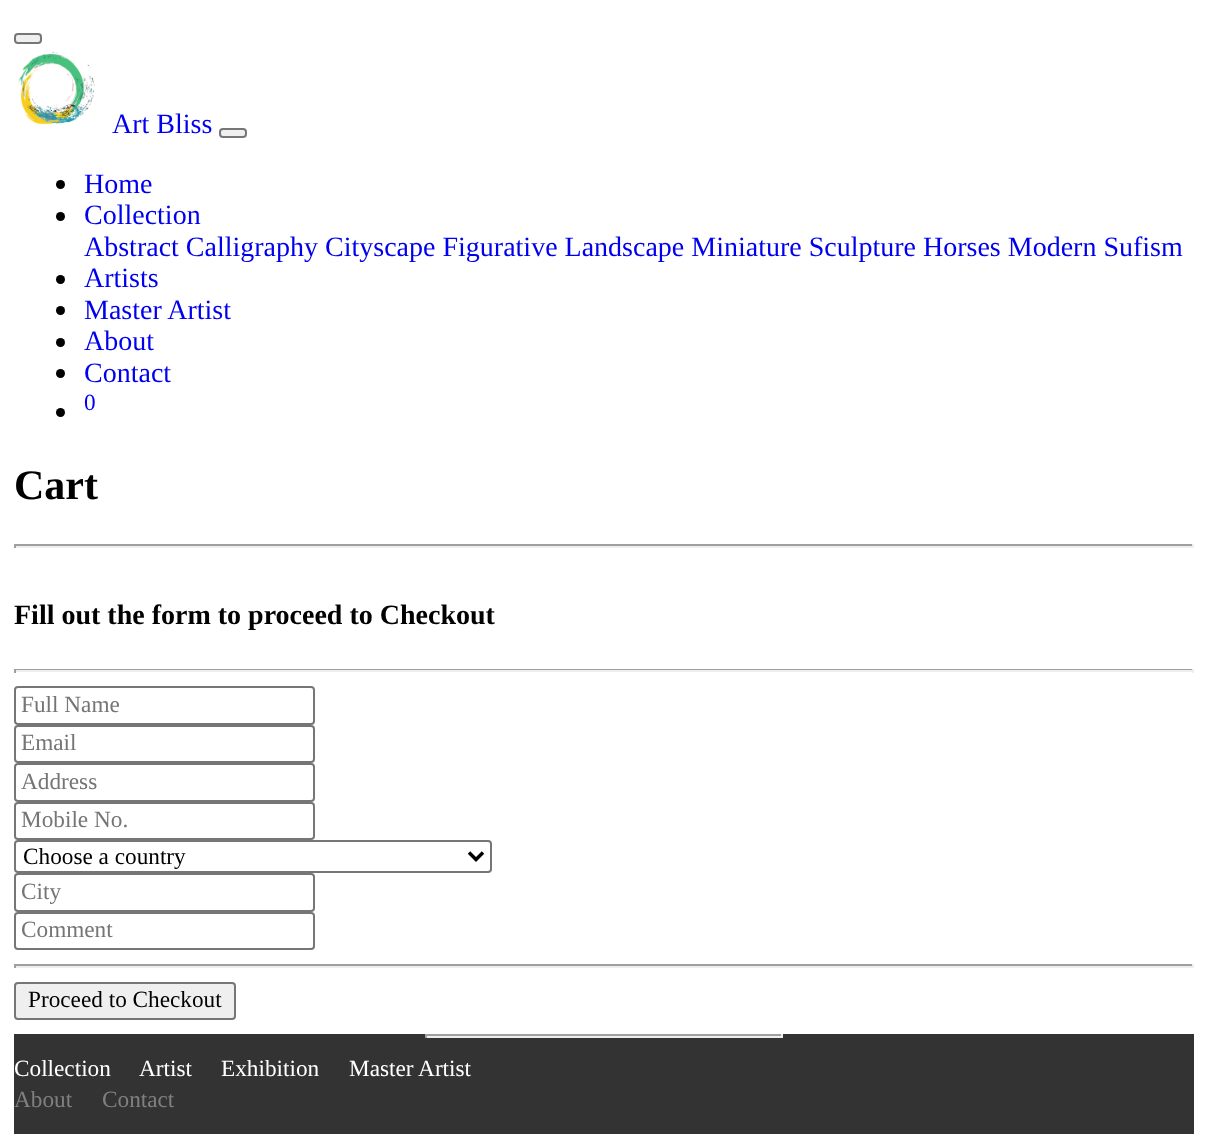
<!DOCTYPE html>
<meta charset="utf-8">
<style>body { margin: 0 } canvas { display: block }</style>
<canvas id="canvas" width="1207" height="1134"></canvas>
<script type="module">
  const canvas = document.getElementById("canvas");
  const ctx = canvas.getContext("2d");
  ctx.miterLimit = 4;
  ctx.fontKerning = "normal";
  async function loadImage(src) {
    const img = new Image();
    img.src = src;
    await img.decode();
    return img;
  }

  ctx.fillStyle = "#ffffff";
  ctx.fillRect(0, 0, 1207, 1134);
  ctx.fillStyle = "#efefef";
  ctx.beginPath();
  ctx.roundRect(15, 34, 26, 9, 3);
  ctx.fill();
  ctx.strokeStyle = "#767676";
  ctx.lineWidth = 2;
  ctx.stroke();
  ctx.drawImage(await loadImage("img1.png"), 18, 51, 77, 74);
  ctx.font = "28px Liberation Serif";
  ctx.fillStyle = "#0000ee";
  ctx.fillText("Art Bliss", 112, 133);
  ctx.fillStyle = "#efefef";
  ctx.beginPath();
  ctx.roundRect(220, 129, 26, 8, 3);
  ctx.fill();
  ctx.stroke();
  ctx.fillStyle = "#000000";
  ctx.beginPath();
  ctx.arc(60.5, 184.5, 4.5, 0, Math.PI * 2);
  ctx.fill();
  ctx.fillStyle = "#0000ee";
  ctx.fillText("Home", 84, 193);
  ctx.fillStyle = "#000000";
  ctx.beginPath();
  ctx.arc(60.5, 216.5, 4.5, 0, Math.PI * 2);
  ctx.fill();
  ctx.fillStyle = "#0000ee";
  ctx.fillText("Collection", 84, 224);
  ctx.fillText("Abstract Calligraphy Cityscape Figurative Landscape Miniature Sculpture Horses Modern Sufism", 84, 256);
  ctx.fillStyle = "#000000";
  ctx.beginPath();
  ctx.arc(60.5, 279.5, 4.5, 0, Math.PI * 2);
  ctx.fill();
  ctx.fillStyle = "#0000ee";
  ctx.fillText("Artists", 84, 287);
  ctx.fillStyle = "#000000";
  ctx.beginPath();
  ctx.arc(60.5, 310.5, 4.5, 0, Math.PI * 2);
  ctx.fill();
  ctx.fillStyle = "#0000ee";
  ctx.fillText("Master Artist", 84, 319);
  ctx.fillStyle = "#000000";
  ctx.beginPath();
  ctx.arc(60.5, 342.5, 4.5, 0, Math.PI * 2);
  ctx.fill();
  ctx.fillStyle = "#0000ee";
  ctx.fillText("About", 84, 350);
  ctx.fillStyle = "#000000";
  ctx.beginPath();
  ctx.arc(60.5, 373.5, 4.5, 0, Math.PI * 2);
  ctx.fill();
  ctx.fillStyle = "#0000ee";
  ctx.fillText("Contact", 84, 382);
  ctx.font = "23.25px Liberation Serif";
  ctx.fillText("0", 84, 410);
  ctx.fillStyle = "#000000";
  ctx.beginPath();
  ctx.arc(60.5, 412.5, 4.5, 0, Math.PI * 2);
  ctx.fill();
  ctx.font = "bold 42px Liberation Serif";
  ctx.fillText("Cart", 14, 499);
  ctx.fillStyle = "#9f9f9f";
  ctx.fillRect(14, 544, 1180, 2);
  ctx.fillStyle = "#eeeeee";
  ctx.fillRect(1192, 544, 2, 4);
  ctx.fillRect(14, 546, 1180, 2);
  ctx.fillStyle = "#9f9f9f";
  ctx.fillRect(14, 544, 2, 4);
  ctx.font = "bold 28px Liberation Serif";
  ctx.fillStyle = "#000000";
  ctx.fillText("Fill out the form to proceed to Checkout", 14, 624);
  ctx.fillStyle = "#9f9f9f";
  ctx.fillRect(14, 669, 1180, 1);
  ctx.fillStyle = "#eeeeee";
  ctx.fillRect(1192, 669, 2, 4);
  ctx.fillRect(14, 670, 1180, 2);
  ctx.fillStyle = "#9f9f9f";
  ctx.fillRect(14, 669, 2, 4);
  ctx.beginPath();
  ctx.roundRect(15, 687, 299, 37, 3);
  ctx.stroke();
  ctx.font = "23.25px Liberation Serif";
  ctx.fillStyle = "#757575";
  ctx.fillText("Full Name", 21, 712);
  ctx.beginPath();
  ctx.roundRect(15, 726, 299, 36, 3);
  ctx.stroke();
  ctx.fillText("Email", 21, 750);
  ctx.beginPath();
  ctx.roundRect(15, 764, 299, 37, 3);
  ctx.stroke();
  ctx.fillText("Address", 21, 789);
  ctx.beginPath();
  ctx.roundRect(15, 803, 299, 36, 3);
  ctx.stroke();
  ctx.fillText("Mobile No.", 21, 827);
  ctx.beginPath();
  ctx.roundRect(15, 841, 476, 31, 3);
  ctx.stroke();
  ctx.beginPath();
  ctx.moveTo(469, 852.5);
  ctx.lineTo(476, 859.5);
  ctx.lineTo(483, 852.5);
  ctx.strokeStyle = "#000000";
  ctx.lineWidth = 3.5;
  ctx.stroke();
  ctx.fillStyle = "#000000";
  ctx.fillText("Choose a country", 23, 864);
  ctx.beginPath();
  ctx.roundRect(15, 874, 299, 37, 3);
  ctx.strokeStyle = "#767676";
  ctx.lineWidth = 2;
  ctx.stroke();
  ctx.fillStyle = "#757575";
  ctx.fillText("City", 21, 899);
  ctx.beginPath();
  ctx.roundRect(15, 913, 299, 36, 3);
  ctx.stroke();
  ctx.fillText("Comment", 21, 937);
  ctx.fillStyle = "#9f9f9f";
  ctx.fillRect(14, 964, 1180, 2);
  ctx.fillStyle = "#eeeeee";
  ctx.fillRect(1192, 964, 2, 4);
  ctx.fillRect(14, 966, 1180, 2);
  ctx.fillStyle = "#9f9f9f";
  ctx.fillRect(14, 964, 2, 4);
  ctx.fillStyle = "#efefef";
  ctx.beginPath();
  ctx.roundRect(15, 983, 220, 36, 3);
  ctx.fill();
  ctx.stroke();
  ctx.fillStyle = "#000000";
  ctx.fillText("Proceed to Checkout", 28, 1007);
  ctx.fillStyle = "#333333";
  ctx.fillRect(14, 1034, 1180, 100);
  ctx.fillStyle = "#9f9f9f";
  ctx.fillRect(425, 1034, 357, 2);
  ctx.fillStyle = "#eeeeee";
  ctx.fillRect(781, 1034, 2, 4);
  ctx.fillRect(425, 1036, 357, 2);
  ctx.fillStyle = "#9f9f9f";
  ctx.fillRect(425, 1034, 2, 4);
  ctx.fillStyle = "#ffffff";
  ctx.fillText("Collection", 14, 1076);
  ctx.fillText("Artist", 139, 1076);
  ctx.fillText("Exhibition", 221, 1076);
  ctx.fillText("Master Artist", 349, 1076);
  ctx.fillStyle = "#808080";
  ctx.fillText("About", 14, 1107);
  ctx.fillText("Contact", 102, 1107);
</script>
